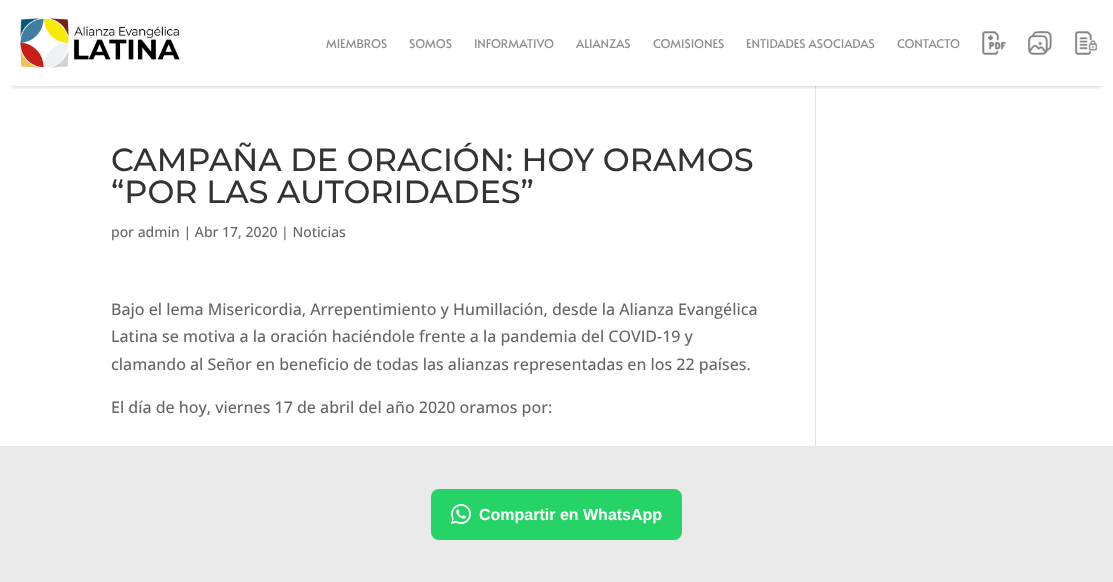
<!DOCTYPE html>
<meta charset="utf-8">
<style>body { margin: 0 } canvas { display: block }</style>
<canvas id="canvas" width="1113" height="582"></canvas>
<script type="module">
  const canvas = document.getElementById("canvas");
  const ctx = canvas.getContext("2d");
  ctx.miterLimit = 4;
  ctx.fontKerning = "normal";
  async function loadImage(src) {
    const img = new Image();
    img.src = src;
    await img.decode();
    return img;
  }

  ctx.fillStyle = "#ffffff";
  ctx.fillRect(0, 0, 1113, 582);
  ctx.fillStyle = "#e2e2e2";
  ctx.fillRect(815, 86, 1, 360);
  ctx.save();
  ctx.beginPath();
  ctx.rect(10, 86, 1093, 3);
  ctx.clip();
  ctx.fillStyle = "rgba(0, 0, 0, 0.3)";
  ctx.filter = "blur(2px)";
  ctx.beginPath();
  ctx.rect(12, 24, 1089, 62);
  ctx.fill();
  ctx.filter = "none";
  ctx.restore();
  ctx.drawImage(await loadImage("img1.png"), 20, 18, 160, 50);
  ctx.font = "12px Alata";
  ctx.fillStyle = "#8e8e8e";
  ctx.fillText("MIEMBROS", 326, 48);
  ctx.fillText("SOMOS", 409, 48);
  ctx.fillText("INFORMATIVO", 474, 48);
  ctx.fillText("ALIANZAS", 576, 48);
  ctx.fillText("COMISIONES", 653, 48);
  ctx.fillText("ENTIDADES ASOCIADAS", 746, 48);
  ctx.fillText("CONTACTO", 897, 48);
  ctx.drawImage(await loadImage("img2.png"), 982, 31, 24, 24);
  ctx.drawImage(await loadImage("img3.png"), 1028, 31, 24, 24);
  ctx.drawImage(await loadImage("img4.png"), 1074, 31, 24, 24);
  ctx.font = "500 32px Montserrat";
  ctx.fillStyle = "#333333";
  ctx.fillText("CAMPAÑA DE ORACIÓN: HOY ORAMOS", 111, 171);
  ctx.fillText("“POR LAS AUTORIDADES”", 111, 203);
  ctx.font = "500 14px Open Sans";
  ctx.fillStyle = "#666666";
  ctx.fillText("por admin | Abr 17, 2020 | Noticias", 111, 237);
  ctx.font = "500 16px Open Sans";
  ctx.fillText("Bajo el lema Misericordia, Arrepentimiento y Humillación, desde la Alianza Evangélica", 111, 315);
  ctx.fillText("Latina se motiva a la oración haciéndole frente a la pandemia del COVID-19 y", 111, 342);
  ctx.fillText("clamando al Señor en beneficio de todas las alianzas representadas en los 22 países.", 111, 370);
  ctx.fillText("El día de hoy, viernes 17 de abril del año 2020 oramos por:", 111, 413);
  ctx.fillStyle = "#eaeaea";
  ctx.fillRect(0, 446, 1113, 136);
  ctx.fillStyle = "#25d366";
  ctx.beginPath();
  ctx.roundRect(431, 489, 251, 51, 8);
  ctx.fill();
  ctx.drawImage(await loadImage("img5.png"), 451, 504, 20, 20);
  ctx.font = "bold 16px Liberation Sans";
  ctx.fillStyle = "#ffffff";
  ctx.fillText("Compartir en WhatsApp", 479, 520);
</script>
